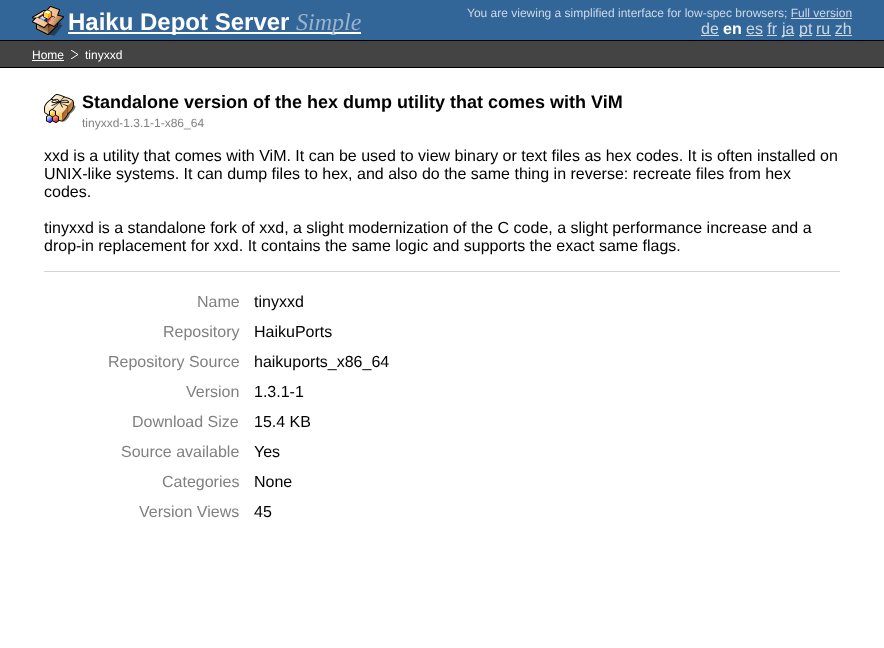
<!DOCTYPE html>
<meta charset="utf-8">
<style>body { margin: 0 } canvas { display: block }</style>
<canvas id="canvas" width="884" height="648"></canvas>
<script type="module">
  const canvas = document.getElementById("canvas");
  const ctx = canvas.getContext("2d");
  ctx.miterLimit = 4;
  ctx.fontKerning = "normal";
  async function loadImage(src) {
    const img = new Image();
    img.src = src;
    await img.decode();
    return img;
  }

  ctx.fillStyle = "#ffffff";
  ctx.fillRect(0, 0, 884, 648);
  ctx.fillStyle = "#336698";
  ctx.fillRect(0, 0, 884, 40);
  ctx.fillStyle = "#000000";
  ctx.fillRect(0, 40, 884, 1);
  ctx.drawImage(await loadImage("img1.png"), 32, 6, 32, 30);
  ctx.fillStyle = "#ffffff";
  ctx.fillRect(68, 32, 293, 2);
  ctx.font = "bold 24px Liberation Sans";
  ctx.fillText("Haiku Depot Server", 68, 30);
  ctx.font = "italic 24px Liberation Serif";
  ctx.fillStyle = "#9ab3cc";
  ctx.fillText("Simple", 296, 30);
  ctx.font = "12px Liberation Sans";
  ctx.fillStyle = "#ccd9e5";
  ctx.fillText("You are viewing a simplified interface for low-spec browsers; Full version", 467, 17);
  ctx.fillRect(791, 18, 61, 1);
  ctx.font = "16px Liberation Sans";
  ctx.fillText("de", 701, 34);
  ctx.fillRect(701, 35, 18, 1);
  ctx.font = "bold 16px Liberation Sans";
  ctx.fillStyle = "#ffffff";
  ctx.fillText("en", 723, 34);
  ctx.font = "16px Liberation Sans";
  ctx.fillStyle = "#ccd9e5";
  ctx.fillText("es fr", 746, 34);
  ctx.fillRect(746, 35, 17, 1);
  ctx.fillRect(767, 35, 10, 1);
  ctx.fillRect(782, 35, 12, 1);
  ctx.fillText("ja", 782, 34);
  ctx.fillRect(799, 35, 13, 1);
  ctx.fillText("pt", 799, 34);
  ctx.fillRect(816, 35, 15, 1);
  ctx.fillText("ru zh", 816, 34);
  ctx.fillRect(835, 35, 17, 1);
  ctx.fillStyle = "#444444";
  ctx.fillRect(0, 41, 884, 26);
  ctx.fillStyle = "#000000";
  ctx.fillRect(0, 67, 884, 1);
  ctx.font = "12px Liberation Sans";
  ctx.fillStyle = "#ffffff";
  ctx.fillText("Home", 32, 59);
  ctx.fillRect(32, 60, 32, 1);
  ctx.fillText("tinyxxd", 85, 59);
  ctx.save();
  ctx.beginPath();
  ctx.rect(71, 50, 7, 9);
  ctx.clip();
  ctx.beginPath();
  ctx.moveTo(71, 59);
  ctx.lineTo(78, 54.5);
  ctx.lineTo(71, 50);
  ctx.strokeStyle = "#ffffff";
  ctx.stroke();
  ctx.restore();
  ctx.drawImage(await loadImage("img2.png"), 44, 94, 32, 30);
  ctx.font = "bold 18px Liberation Sans";
  ctx.fillStyle = "#000000";
  ctx.fillText("Standalone version of the hex dump utility that comes with ViM", 82, 108);
  ctx.font = "12px Liberation Sans";
  ctx.fillStyle = "#808080";
  ctx.fillText("tinyxxd-1.3.1-1-x86_64", 82, 127);
  ctx.font = "16px Liberation Sans";
  ctx.fillStyle = "#000000";
  ctx.fillText("xxd is a utility that comes with ViM. It can be used to view binary or text files as hex codes. It is often installed on", 44, 161);
  ctx.fillText("UNIX-like systems. It can dump files to hex, and also do the same thing in reverse: recreate files from hex", 44, 179);
  ctx.fillText("codes.", 44, 197);
  ctx.fillText("tinyxxd is a standalone fork of xxd, a slight modernization of the C code, a slight performance increase and a", 44, 233);
  ctx.fillText("drop-in replacement for xxd. It contains the same logic and supports the exact same flags.", 44, 251);
  ctx.fillStyle = "#d3d3d3";
  ctx.fillRect(44, 271, 796, 1);
  ctx.fillStyle = "#808080";
  ctx.fillText("Name", 197, 307);
  ctx.fillStyle = "#000000";
  ctx.fillText("tinyxxd", 254, 307);
  ctx.fillStyle = "#808080";
  ctx.fillText("Repository", 163, 337);
  ctx.fillStyle = "#000000";
  ctx.fillText("HaikuPorts", 254, 337);
  ctx.fillStyle = "#808080";
  ctx.fillText("Repository Source", 108, 367);
  ctx.fillStyle = "#000000";
  ctx.fillText("haikuports_x86_64", 254, 367);
  ctx.fillStyle = "#808080";
  ctx.fillText("Version", 186, 397);
  ctx.fillStyle = "#000000";
  ctx.fillText("1.3.1-1", 254, 397);
  ctx.fillStyle = "#808080";
  ctx.fillText("Download Size", 132, 427);
  ctx.fillStyle = "#000000";
  ctx.fillText("15.4 KB", 254, 427);
  ctx.fillStyle = "#808080";
  ctx.fillText("Source available", 121, 457);
  ctx.fillStyle = "#000000";
  ctx.fillText("Yes", 254, 457);
  ctx.fillStyle = "#808080";
  ctx.fillText("Categories", 162, 487);
  ctx.fillStyle = "#000000";
  ctx.fillText("None", 254, 487);
  ctx.fillStyle = "#808080";
  ctx.fillText("Version Views", 139, 517);
  ctx.fillStyle = "#000000";
  ctx.fillText("45", 254, 517);
</script>
